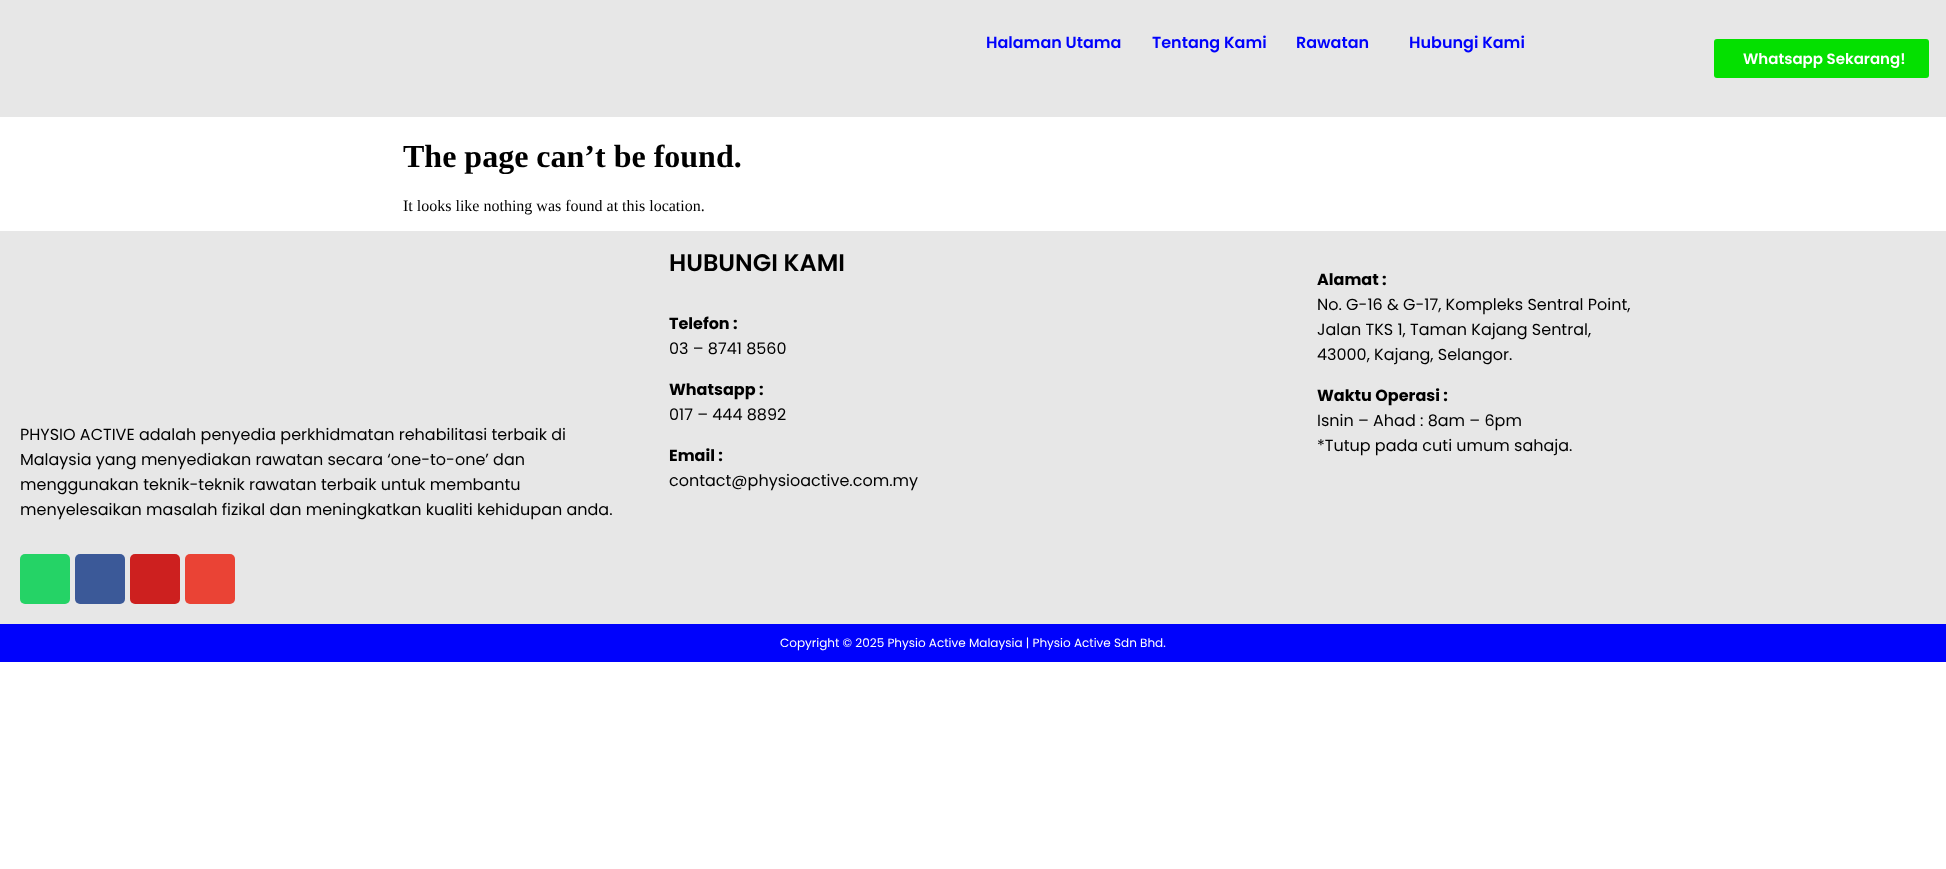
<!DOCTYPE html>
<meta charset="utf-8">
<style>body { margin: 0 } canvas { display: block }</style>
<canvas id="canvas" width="1946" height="869"></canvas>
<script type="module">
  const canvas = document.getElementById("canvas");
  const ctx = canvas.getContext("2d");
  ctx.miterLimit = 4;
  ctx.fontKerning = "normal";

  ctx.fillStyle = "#ffffff";
  ctx.fillRect(0, 0, 1946, 869);
  ctx.fillStyle = "#e7e7e7";
  ctx.fillRect(0, 0, 1946, 117);
  ctx.font = "600 16px Poppins";
  ctx.fillStyle = "#0002fc";
  ctx.fillText("Halaman Utama", 986, 48);
  ctx.fillText("Tentang Kami", 1152, 48);
  ctx.fillText("Rawatan", 1296, 48);
  ctx.fillText("Hubungi Kami", 1409, 48);
  ctx.fillStyle = "#04e000";
  ctx.beginPath();
  ctx.roundRect(1714, 39, 215, 39, 3);
  ctx.fill();
  ctx.font = "600 15px Poppins";
  ctx.fillStyle = "#ffffff";
  ctx.fillText("Whatsapp Sekarang!", 1743, 64);
  ctx.font = "bold 32px Liberation Serif";
  ctx.fillStyle = "#000000";
  ctx.fillText("The page can’t be found.", 403, 167);
  ctx.font = "16px Liberation Serif";
  ctx.fillText("It looks like nothing was found at this location.", 403, 211);
  ctx.fillStyle = "#e7e7e7";
  ctx.fillRect(0, 231, 1946, 393);
  ctx.font = "600 24px Poppins";
  ctx.fillStyle = "#000000";
  ctx.fillText("HUBUNGI KAMI", 669, 271);
  ctx.font = "bold 16px Poppins";
  ctx.fillText("Telefon :", 669, 329);
  ctx.font = "16px Poppins";
  ctx.fillText("03 – 8741 8560", 669, 354);
  ctx.font = "bold 16px Poppins";
  ctx.fillText("Whatsapp :", 669, 395);
  ctx.font = "16px Poppins";
  ctx.fillText("017 – 444 8892", 669, 420);
  ctx.font = "bold 16px Poppins";
  ctx.fillText("Email :", 669, 461);
  ctx.font = "16px Poppins";
  ctx.fillText("contact@physioactive.com.my", 669, 486);
  ctx.font = "bold 16px Poppins";
  ctx.fillText("Alamat :", 1317, 285);
  ctx.font = "16px Poppins";
  ctx.fillText("No. G-16 & G-17, Kompleks Sentral Point,", 1317, 310);
  ctx.fillText("Jalan TKS 1, Taman Kajang Sentral,", 1317, 335);
  ctx.fillText("43000, Kajang, Selangor.", 1317, 360);
  ctx.font = "bold 16px Poppins";
  ctx.fillText("Waktu Operasi :", 1317, 401);
  ctx.font = "16px Poppins";
  ctx.fillText("Isnin – Ahad : 8am – 6pm", 1317, 426);
  ctx.fillText("*Tutup pada cuti umum sahaja.", 1317, 451);
  ctx.fillText("PHYSIO ACTIVE adalah penyedia perkhidmatan rehabilitasi terbaik di", 20, 440);
  ctx.fillText("Malaysia yang menyediakan rawatan secara ‘one-to-one’ dan", 20, 465);
  ctx.fillText("menggunakan teknik-teknik rawatan terbaik untuk membantu", 20, 490);
  ctx.fillText("menyelesaikan masalah fizikal dan meningkatkan kualiti kehidupan anda.", 20, 515);
  ctx.fillStyle = "#25d366";
  ctx.beginPath();
  ctx.roundRect(20, 554, 50, 50, 5);
  ctx.fill();
  ctx.fillStyle = "#3b5998";
  ctx.beginPath();
  ctx.roundRect(75, 554, 50, 50, 5);
  ctx.fill();
  ctx.fillStyle = "#cd201f";
  ctx.beginPath();
  ctx.roundRect(130, 554, 50, 50, 5);
  ctx.fill();
  ctx.fillStyle = "#ea4335";
  ctx.beginPath();
  ctx.roundRect(185, 554, 50, 50, 5);
  ctx.fill();
  ctx.fillStyle = "#0002fc";
  ctx.fillRect(0, 624, 1946, 38);
  ctx.font = "12px Poppins";
  ctx.fillStyle = "#ffffff";
  ctx.fillText("Copyright © 2025 Physio Active Malaysia | Physio Active Sdn Bhd.", 780, 647);
</script>
